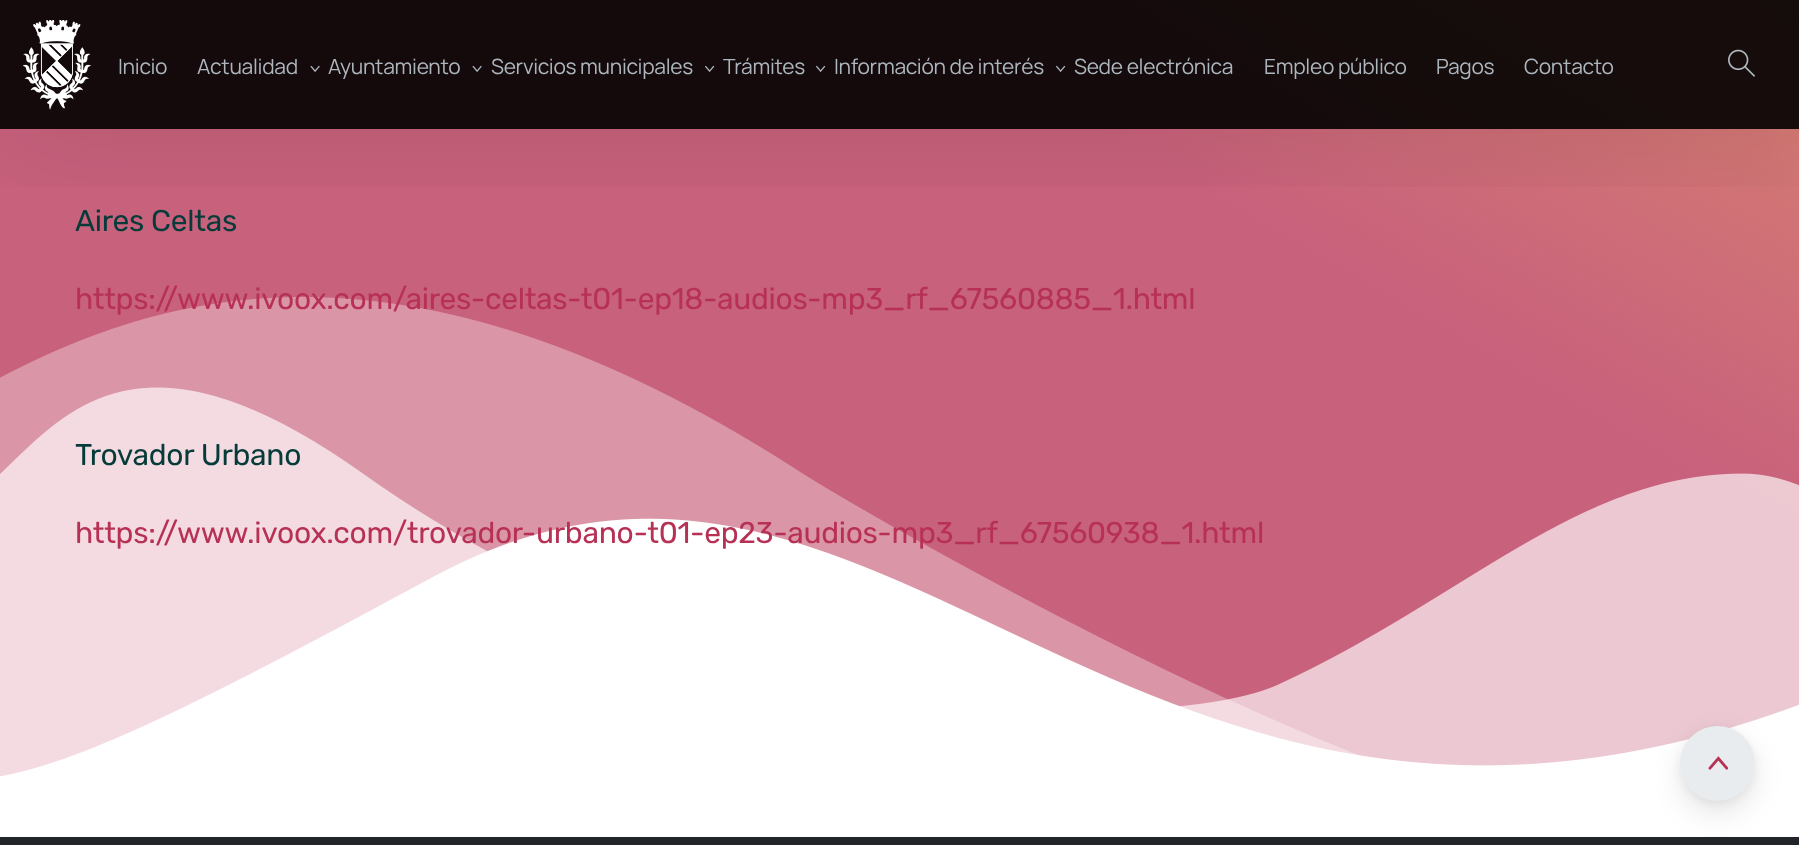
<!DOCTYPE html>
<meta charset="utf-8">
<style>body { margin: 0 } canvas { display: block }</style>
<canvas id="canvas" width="1799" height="845"></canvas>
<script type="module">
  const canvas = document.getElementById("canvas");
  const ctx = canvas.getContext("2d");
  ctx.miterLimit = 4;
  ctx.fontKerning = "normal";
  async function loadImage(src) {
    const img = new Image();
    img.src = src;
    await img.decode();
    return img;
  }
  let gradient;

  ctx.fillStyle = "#212529";
  ctx.fillRect(0, 0, 1799, 845);
  gradient = ctx.createLinearGradient(173, 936, 1627, -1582);
  gradient.addColorStop(0.4, "#c8617c");
  gradient.addColorStop(1, "#ffd453");
  ctx.fillStyle = gradient;
  ctx.fillRect(0, 129, 1799, 648);
  gradient = ctx.createLinearGradient(173, 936, 1627, -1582);
  gradient.addColorStop(0.4, "#140a0c");
  gradient.addColorStop(1, "#191508");
  ctx.fillStyle = gradient;
  ctx.fillRect(0, 0, 1799, 129);
  ctx.drawImage(await loadImage("img8.png"), 0, 297, 1799, 540);
  ctx.save();
  ctx.beginPath();
  ctx.rect(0, 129, 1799, 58);
  ctx.clip();
  ctx.fillStyle = "rgba(0, 0, 0, 0.1)";
  ctx.filter = "blur(60px)";
  ctx.beginPath();
  ctx.rect(0, 8, 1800, 129);
  ctx.fill();
  ctx.filter = "none";
  ctx.restore();
  ctx.drawImage(await loadImage("img1.png"), 23, 20, 68, 90);
  ctx.letterSpacing = "-0.3px";
  ctx.font = "21px Manrope";
  ctx.fillStyle = "#adb5bd";
  ctx.fillText("Inicio", 118, 74);
  ctx.fillText("Actualidad", 197, 74);
  ctx.drawImage(await loadImage("img2.png"), 310, 65, 10, 7);
  ctx.fillText("Ayuntamiento", 328, 74);
  ctx.drawImage(await loadImage("img3.png"), 472, 65, 10, 7);
  ctx.fillText("Servicios municipales", 491, 74);
  ctx.drawImage(await loadImage("img4.png"), 705, 65, 10, 7);
  ctx.fillText("Trámites", 723, 74);
  ctx.drawImage(await loadImage("img5.png"), 816, 65, 10, 7);
  ctx.fillText("Información de interés", 834, 74);
  ctx.drawImage(await loadImage("img6.png"), 1056, 65, 10, 7);
  ctx.fillText("Sede electrónica", 1074, 74);
  ctx.fillText("Empleo público", 1264, 74);
  ctx.fillText("Pagos", 1436, 74);
  ctx.fillText("Contacto", 1524, 74);
  ctx.drawImage(await loadImage("img7.png"), 1728, 49, 27, 28);
  ctx.font = "30px Rubik";
  ctx.fillStyle = "#073b3a";
  ctx.fillText("Aires Celtas", 75, 231);
  ctx.fillStyle = "#b73155";
  ctx.fillText("https://www.ivoox.com/aires-celtas-t01-ep18-audios-mp3_rf_67560885_1.html", 75, 309);
  ctx.fillStyle = "#073b3a";
  ctx.fillText("Trovador Urbano", 75, 465);
  ctx.fillStyle = "#b73155";
  ctx.fillText("https://www.ivoox.com/trovador-urbano-t01-ep23-audios-mp3_rf_67560938_1.html", 75, 543);
  ctx.fillStyle = "rgba(0, 0, 0, 0.1)";
  ctx.filter = "blur(14.5px)";
  ctx.beginPath();
  ctx.roundRect(1680, 738, 75, 75, 37.5);
  ctx.fill();
  ctx.filter = "none";
  ctx.fillStyle = "rgba(0, 0, 0, 0.05)";
  ctx.filter = "blur(4.5px)";
  ctx.beginPath();
  ctx.roundRect(1680, 729, 75, 75, 37.5);
  ctx.fill();
  ctx.filter = "none";
  ctx.fillStyle = "#e9ecef";
  ctx.beginPath();
  ctx.arc(1717.5, 763.5, 37.5, 0, Math.PI * 2);
  ctx.fill();
  ctx.drawImage(await loadImage("img9.png"), 1708, 756, 21, 14);
</script>
